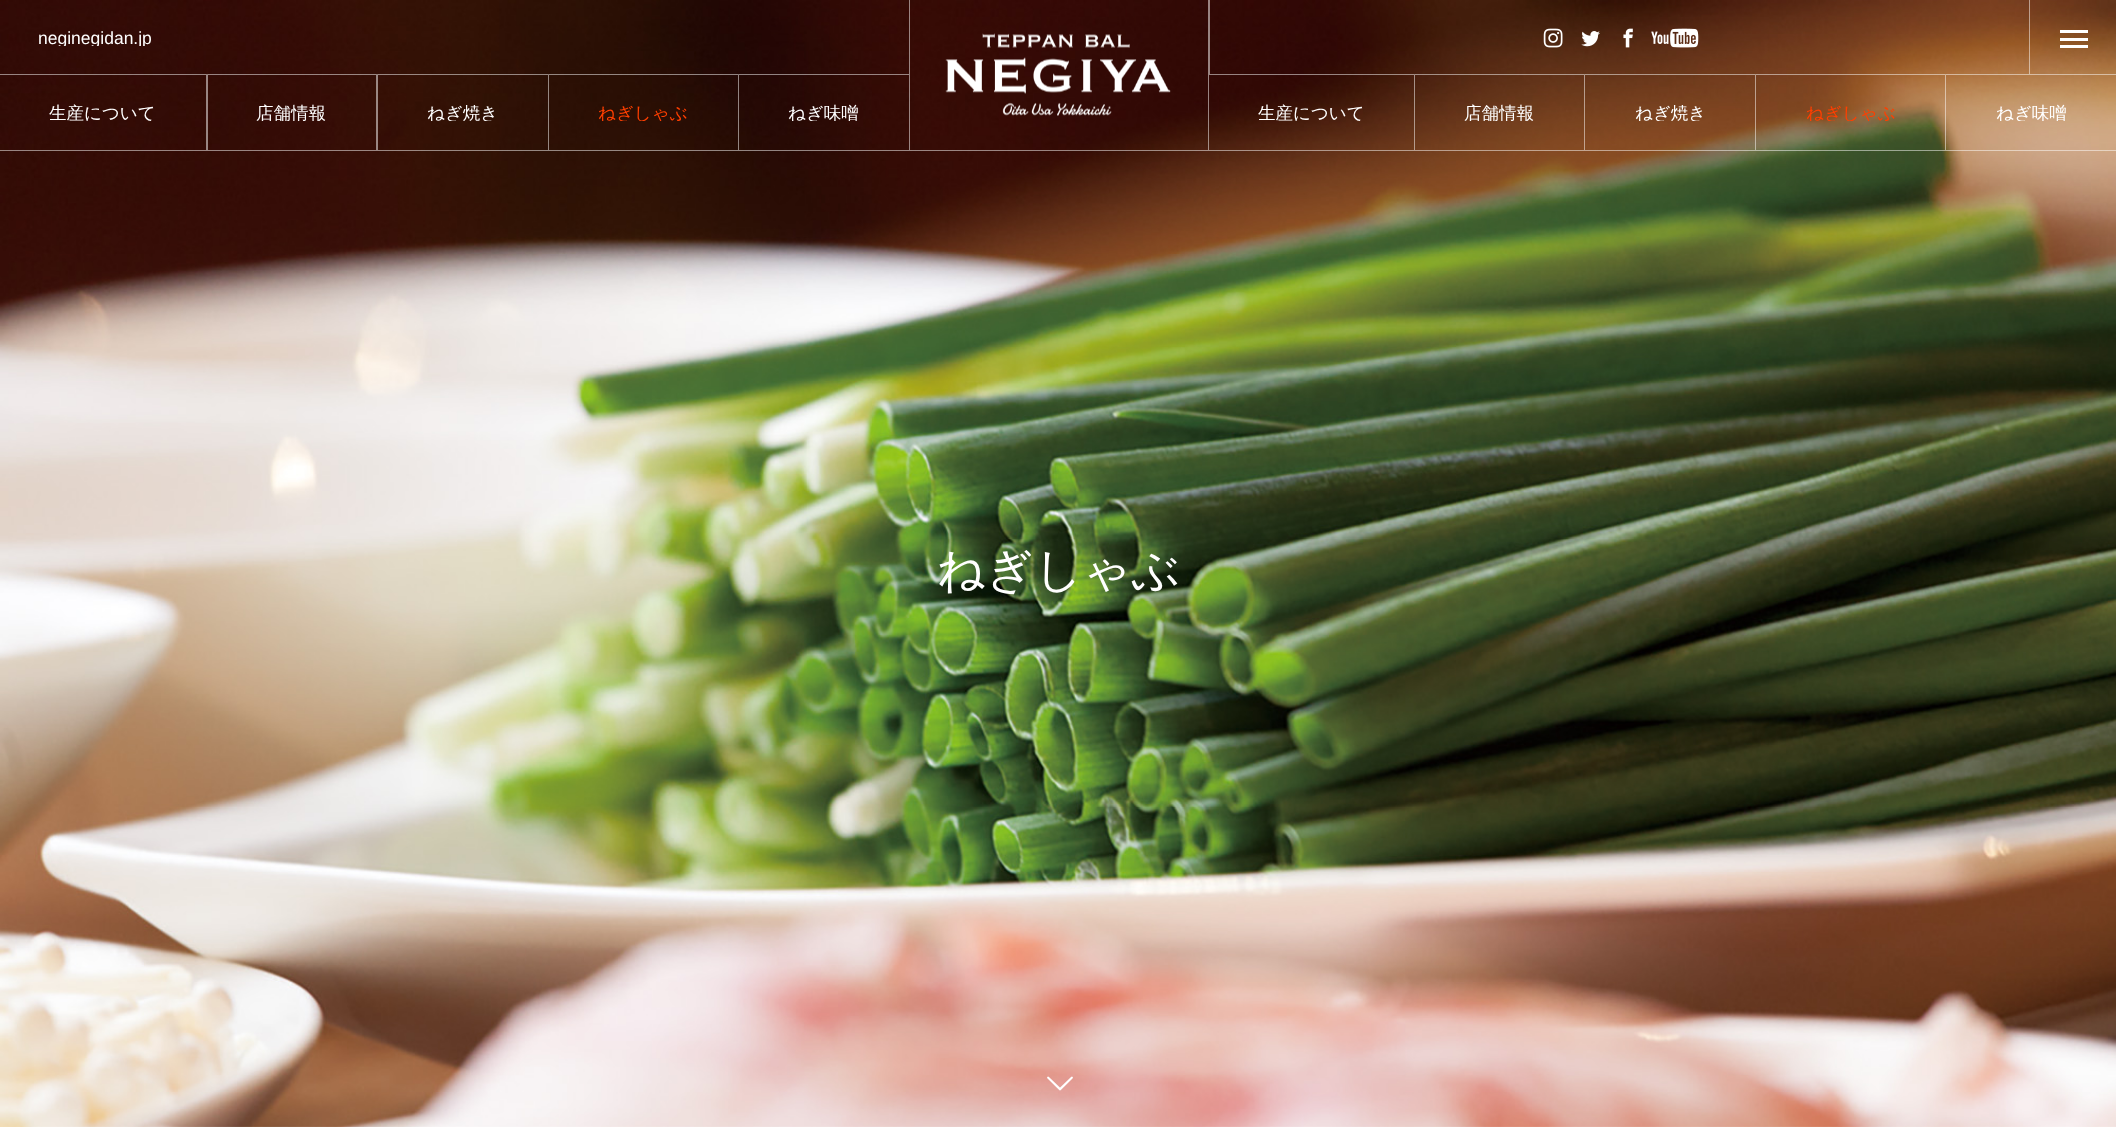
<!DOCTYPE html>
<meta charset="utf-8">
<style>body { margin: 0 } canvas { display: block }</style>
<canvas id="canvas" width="2116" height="1127"></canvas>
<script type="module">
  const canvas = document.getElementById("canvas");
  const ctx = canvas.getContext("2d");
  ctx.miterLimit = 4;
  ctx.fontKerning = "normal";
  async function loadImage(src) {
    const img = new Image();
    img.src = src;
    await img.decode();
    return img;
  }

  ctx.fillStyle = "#ffffff";
  ctx.fillRect(0, 0, 2116, 1127);
  ctx.drawImage(await loadImage("img6.png"), 0, 0, 2116, 1127);
  ctx.fillStyle = "rgba(255, 255, 255, 0.5)";
  ctx.fillRect(0, 150, 2116, 1);
  ctx.save();
  ctx.beginPath();
  ctx.rect(0, 29, 909, 17);
  ctx.clip();
  ctx.font = "17.5px Liberation Sans";
  ctx.fillStyle = "#ffffff";
  ctx.fillText("neginegidan.jp", 38, 44);
  ctx.restore();
  ctx.fillRect(1208, 0, 1, 150);
  ctx.fillRect(909, 0, 1, 150);
  ctx.drawImage(await loadImage("img1.png"), 945, 33, 226, 83);
  ctx.fillRect(1209, 0, 1, 74);
  ctx.drawImage(await loadImage("img2.png"), 1543, 28, 20, 20);
  ctx.drawImage(await loadImage("img3.png"), 1581, 31, 19, 16);
  ctx.drawImage(await loadImage("img4.png"), 1623, 28, 10, 20);
  ctx.drawImage(await loadImage("img5.png"), 1651, 28, 48, 20);
  ctx.fillRect(2029, 0, 1, 74);
  ctx.fillStyle = "#ffffff";
  ctx.fillRect(2060, 30, 28, 3);
  ctx.fillRect(2060, 38, 28, 3);
  ctx.fillRect(2060, 45, 28, 3);
  ctx.fillStyle = "rgba(255, 255, 255, 0.5)";
  ctx.fillRect(0, 74, 206, 1);
  ctx.font = "500 17.5px WenQuanYi Zen Hei";
  ctx.fillStyle = "#ffffff";
  ctx.fillText("生産について", 49, 119);
  ctx.fillStyle = "rgba(255, 255, 255, 0.5)";
  ctx.beginPath();
  ctx.moveTo(206, 74);
  ctx.lineTo(376, 74);
  ctx.lineTo(376, 75);
  ctx.lineTo(208, 75);
  ctx.closePath();
  ctx.fill();
  ctx.beginPath();
  ctx.moveTo(206, 150);
  ctx.lineTo(206, 74);
  ctx.lineTo(208, 75);
  ctx.lineTo(208, 150);
  ctx.closePath();
  ctx.fill();
  ctx.save();
  ctx.beginPath();
  ctx.rect(208, 104, 168, 17);
  ctx.clip();
  ctx.fillStyle = "#ffffff";
  ctx.fillText("店舗情報", 256, 119);
  ctx.restore();
  ctx.beginPath();
  ctx.moveTo(376, 74);
  ctx.lineTo(548, 74);
  ctx.lineTo(548, 75);
  ctx.lineTo(378, 75);
  ctx.closePath();
  ctx.fill();
  ctx.beginPath();
  ctx.moveTo(376, 150);
  ctx.lineTo(376, 74);
  ctx.lineTo(378, 75);
  ctx.lineTo(378, 150);
  ctx.closePath();
  ctx.fill();
  ctx.save();
  ctx.beginPath();
  ctx.rect(378, 104, 170, 17);
  ctx.clip();
  ctx.fillStyle = "#ffffff";
  ctx.fillText("ねぎ焼き", 427, 119);
  ctx.restore();
  ctx.beginPath();
  ctx.moveTo(548, 74);
  ctx.lineTo(738, 74);
  ctx.lineTo(738, 75);
  ctx.lineTo(549, 75);
  ctx.closePath();
  ctx.fill();
  ctx.beginPath();
  ctx.moveTo(548, 150);
  ctx.lineTo(548, 74);
  ctx.lineTo(549, 75);
  ctx.lineTo(549, 150);
  ctx.closePath();
  ctx.fill();
  ctx.save();
  ctx.beginPath();
  ctx.rect(549, 104, 189, 17);
  ctx.clip();
  ctx.fillStyle = "#ff3f00";
  ctx.fillText("ねぎしゃぶ", 598, 119);
  ctx.restore();
  ctx.beginPath();
  ctx.moveTo(738, 74);
  ctx.lineTo(909, 74);
  ctx.lineTo(909, 75);
  ctx.lineTo(739, 75);
  ctx.closePath();
  ctx.fill();
  ctx.beginPath();
  ctx.moveTo(738, 150);
  ctx.lineTo(738, 74);
  ctx.lineTo(739, 75);
  ctx.lineTo(739, 150);
  ctx.closePath();
  ctx.fill();
  ctx.save();
  ctx.beginPath();
  ctx.rect(739, 104, 170, 17);
  ctx.clip();
  ctx.fillStyle = "#ffffff";
  ctx.fillText("ねぎ味噌", 788, 119);
  ctx.restore();
  ctx.fillRect(1209, 74, 205, 1);
  ctx.fillStyle = "#ffffff";
  ctx.fillText("生産について", 1258, 119);
  ctx.fillStyle = "rgba(255, 255, 255, 0.5)";
  ctx.beginPath();
  ctx.moveTo(1414, 74);
  ctx.lineTo(1584, 74);
  ctx.lineTo(1584, 75);
  ctx.lineTo(1415, 75);
  ctx.closePath();
  ctx.fill();
  ctx.beginPath();
  ctx.moveTo(1414, 150);
  ctx.lineTo(1414, 74);
  ctx.lineTo(1415, 75);
  ctx.lineTo(1415, 150);
  ctx.closePath();
  ctx.fill();
  ctx.save();
  ctx.beginPath();
  ctx.rect(1415, 104, 169, 17);
  ctx.clip();
  ctx.fillStyle = "#ffffff";
  ctx.fillText("店舗情報", 1464, 119);
  ctx.restore();
  ctx.beginPath();
  ctx.moveTo(1584, 74);
  ctx.lineTo(1755, 74);
  ctx.lineTo(1755, 75);
  ctx.lineTo(1585, 75);
  ctx.closePath();
  ctx.fill();
  ctx.beginPath();
  ctx.moveTo(1584, 150);
  ctx.lineTo(1584, 74);
  ctx.lineTo(1585, 75);
  ctx.lineTo(1585, 150);
  ctx.closePath();
  ctx.fill();
  ctx.save();
  ctx.beginPath();
  ctx.rect(1585, 104, 170, 17);
  ctx.clip();
  ctx.fillStyle = "#ffffff";
  ctx.fillText("ねぎ焼き", 1635, 119);
  ctx.restore();
  ctx.beginPath();
  ctx.moveTo(1755, 74);
  ctx.lineTo(1945, 74);
  ctx.lineTo(1945, 75);
  ctx.lineTo(1756, 75);
  ctx.closePath();
  ctx.fill();
  ctx.beginPath();
  ctx.moveTo(1755, 150);
  ctx.lineTo(1755, 74);
  ctx.lineTo(1756, 75);
  ctx.lineTo(1756, 150);
  ctx.closePath();
  ctx.fill();
  ctx.save();
  ctx.beginPath();
  ctx.rect(1756, 104, 189, 17);
  ctx.clip();
  ctx.fillStyle = "#ff3f00";
  ctx.fillText("ねぎしゃぶ", 1806, 119);
  ctx.restore();
  ctx.beginPath();
  ctx.moveTo(1945, 74);
  ctx.lineTo(2116, 74);
  ctx.lineTo(2116, 75);
  ctx.lineTo(1946, 75);
  ctx.closePath();
  ctx.fill();
  ctx.beginPath();
  ctx.moveTo(1945, 150);
  ctx.lineTo(1945, 74);
  ctx.lineTo(1946, 75);
  ctx.lineTo(1946, 150);
  ctx.closePath();
  ctx.fill();
  ctx.save();
  ctx.beginPath();
  ctx.rect(1946, 104, 170, 17);
  ctx.clip();
  ctx.fillStyle = "#ffffff";
  ctx.fillText("ねぎ味噌", 1996, 119);
  ctx.restore();
  ctx.font = "500 47.5px WenQuanYi Zen Hei";
  ctx.fillStyle = "#ffffff";
  ctx.fillText("ねぎしゃぶ", 937, 586);
  ctx.drawImage(await loadImage("img7.png"), 1047, 1076, 26, 15);
</script>
